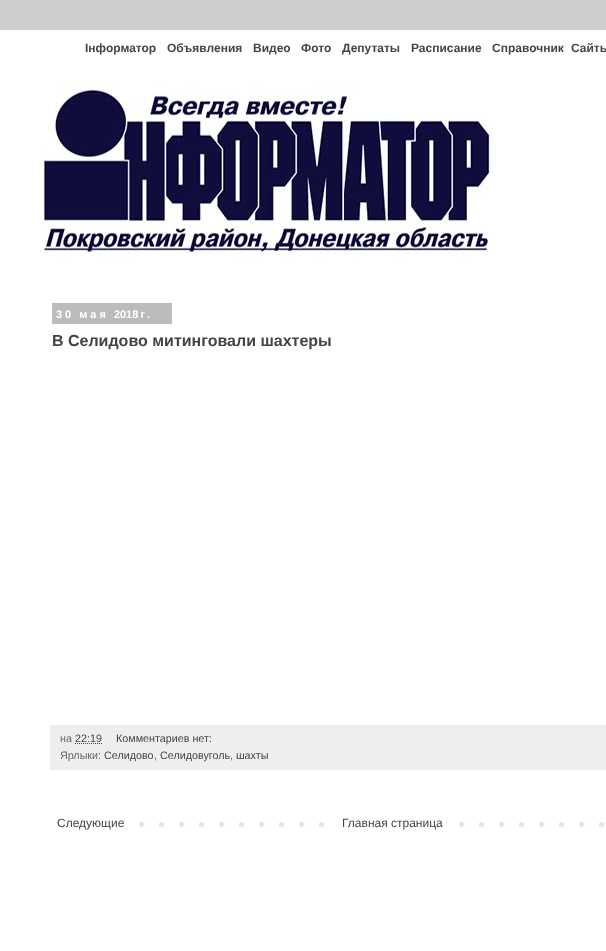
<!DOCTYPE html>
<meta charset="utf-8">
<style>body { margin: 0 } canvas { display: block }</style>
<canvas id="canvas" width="606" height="951"></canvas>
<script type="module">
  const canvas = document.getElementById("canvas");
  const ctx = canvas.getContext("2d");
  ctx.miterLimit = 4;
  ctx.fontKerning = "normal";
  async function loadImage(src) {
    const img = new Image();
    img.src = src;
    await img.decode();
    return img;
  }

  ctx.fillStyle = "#cecece";
  ctx.fillRect(0, 0, 606, 951);
  ctx.fillStyle = "#ffffff";
  ctx.fillRect(0, 30, 606, 921);
  ctx.font = "bold 12px Liberation Sans";
  ctx.fillStyle = "#444444";
  ctx.fillText("Інформатор", 85, 52);
  ctx.fillText("Объявления", 167, 52);
  ctx.fillText("Видео", 253, 52);
  ctx.fillText("Фото", 301, 52);
  ctx.fillText("Депутаты", 342, 52);
  ctx.fillText("Расписание", 411, 52);
  ctx.fillText("Справочник", 492, 52);
  ctx.fillText("Сайты", 571, 52);
  ctx.drawImage(await loadImage("img1.png"), 40, 87, 454, 175);
  ctx.fillStyle = "#bbbbbb";
  ctx.fillRect(52, 303, 120, 21);
  ctx.letterSpacing = "3px";
  ctx.wordSpacing = "-1px";
  ctx.font = "bold 11px Liberation Sans";
  ctx.fillStyle = "#ffffff";
  ctx.fillText("30 мая 2018 г.", 56, 318);
  ctx.letterSpacing = "0px";
  ctx.wordSpacing = "0px";
  ctx.font = "bold 16px Liberation Sans";
  ctx.fillStyle = "#444444";
  ctx.fillText("В Селидово митинговали шахтеры", 52, 346);
  ctx.fillStyle = "#eeeeee";
  ctx.fillRect(50, 725, 556, 45);
  ctx.font = "10.75px Liberation Sans";
  ctx.fillStyle = "#666666";
  ctx.fillText("на", 60, 742);
  ctx.fillStyle = "#444444";
  ctx.fillText("22:19", 75, 742);
  ctx.beginPath();
  ctx.moveTo(75, 743.5);
  ctx.lineTo(102, 743.5);
  ctx.strokeStyle = "#444444";
  ctx.setLineDash([1, 1]);
  ctx.stroke();
  ctx.fillText("Комментариев нет:", 116, 742);
  ctx.fillStyle = "#666666";
  ctx.fillText("Ярлыки:", 60, 759);
  ctx.fillStyle = "#444444";
  ctx.fillText("Селидово", 104, 759);
  ctx.fillStyle = "#666666";
  ctx.fillText(",", 154, 759);
  ctx.fillStyle = "#444444";
  ctx.fillText("Селидовуголь", 160, 759);
  ctx.fillStyle = "#666666";
  ctx.fillText(",", 230, 759);
  ctx.fillStyle = "#444444";
  ctx.fillText("шахты", 236, 759);
  ctx.drawImage(await loadImage("img2.png"), 139, 822, 465, 5);
  ctx.font = "12px Liberation Sans";
  ctx.fillText("Следующие", 57, 827);
  ctx.fillStyle = "#ffffff";
  ctx.fillRect(339, 822, 106, 5);
  ctx.fillStyle = "#444444";
  ctx.fillText("Главная страница", 342, 827);
</script>
